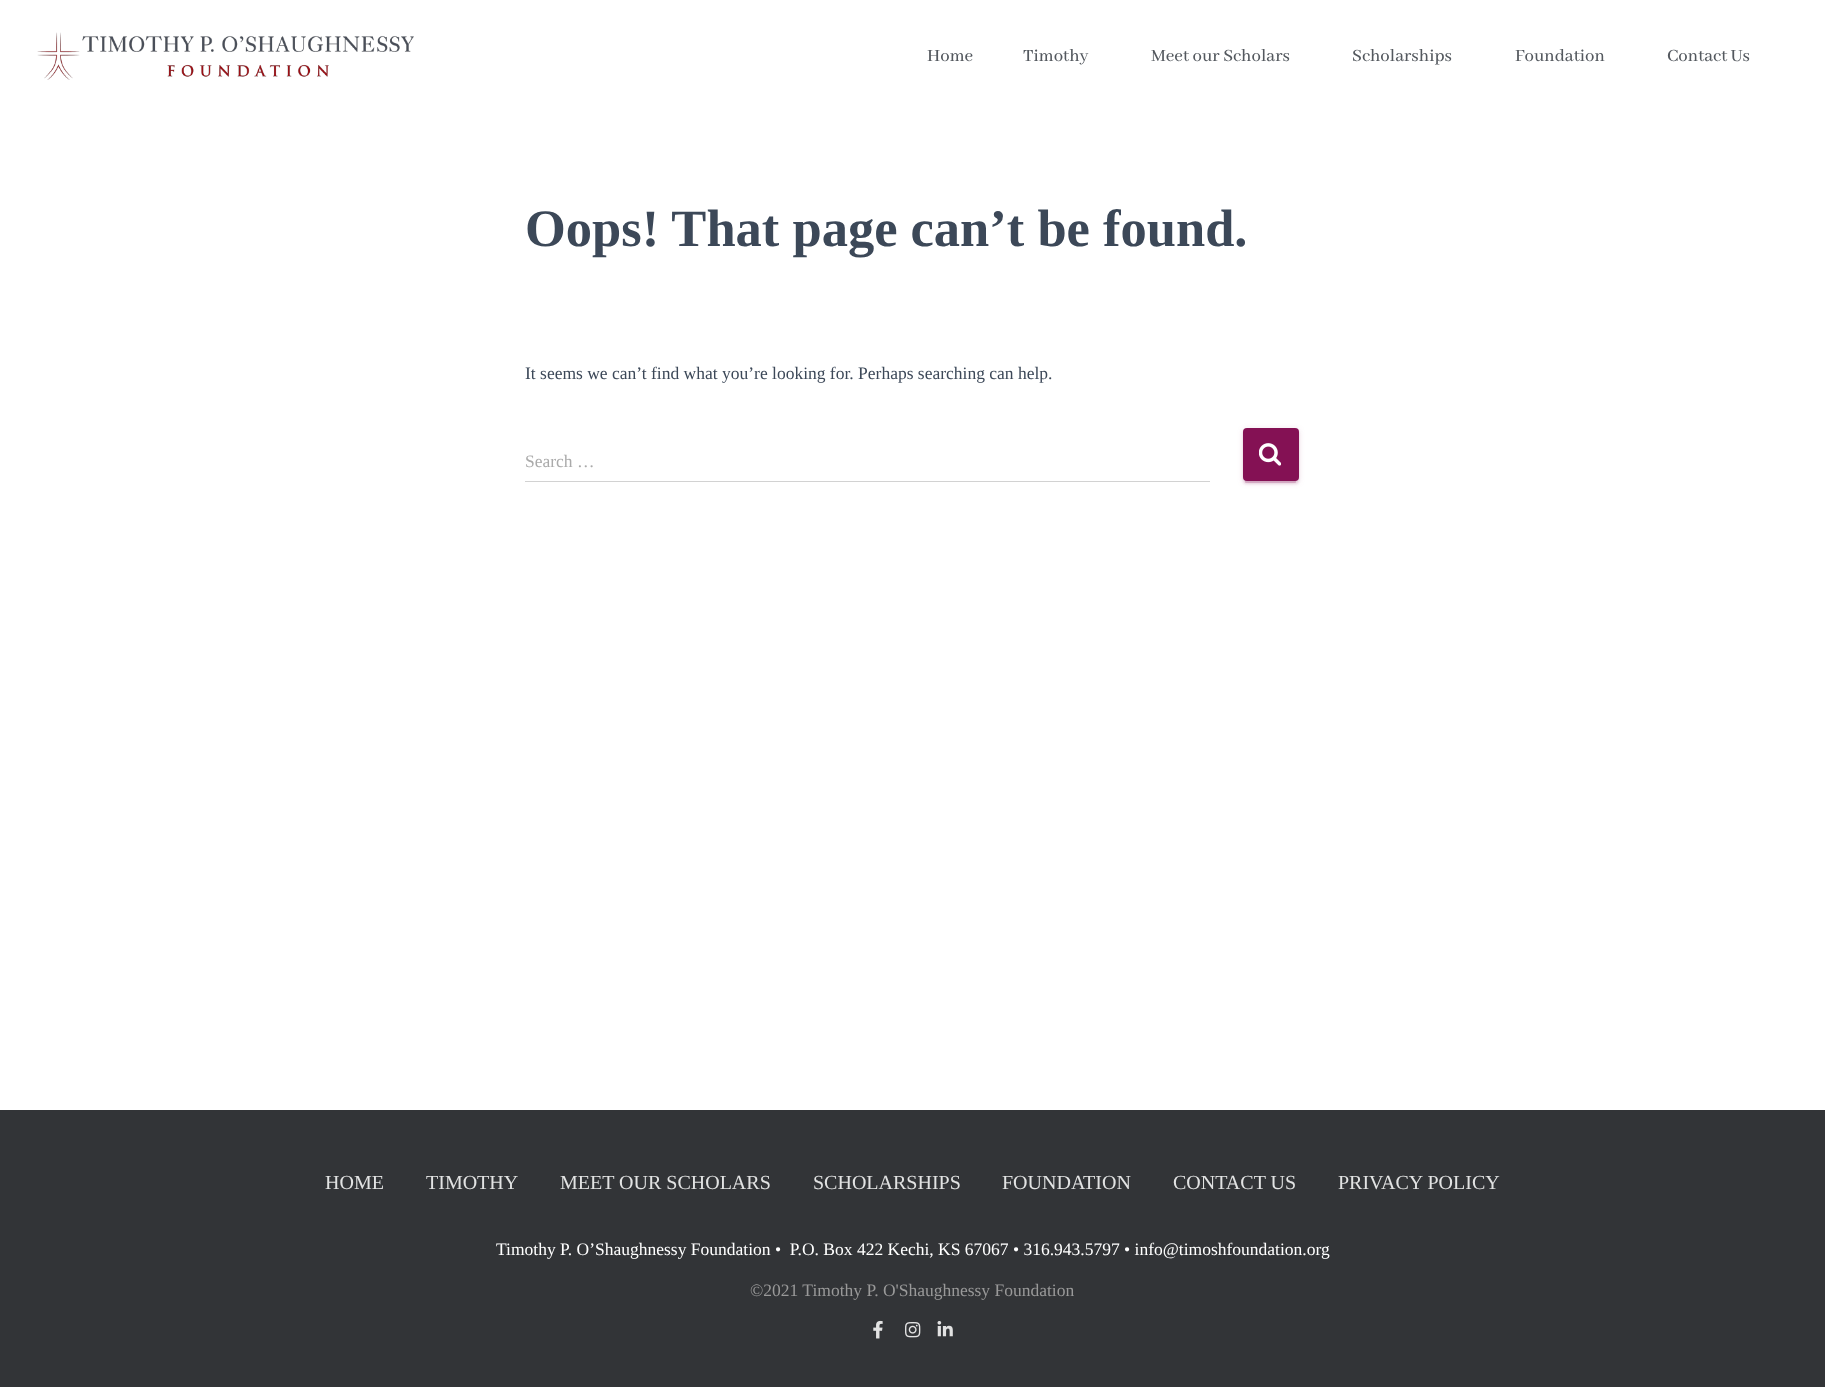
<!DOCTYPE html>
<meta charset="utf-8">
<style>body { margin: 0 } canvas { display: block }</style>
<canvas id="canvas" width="1825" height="1387"></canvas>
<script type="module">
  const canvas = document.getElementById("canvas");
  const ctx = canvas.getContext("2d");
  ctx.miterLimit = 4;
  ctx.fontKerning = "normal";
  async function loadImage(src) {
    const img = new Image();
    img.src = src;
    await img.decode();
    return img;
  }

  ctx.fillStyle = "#ffffff";
  ctx.fillRect(0, 0, 1825, 1387);
  ctx.drawImage(await loadImage("img1.png"), 37, 32, 377, 48);
  ctx.font = "500 18.75px Abhaya Libre";
  ctx.fillStyle = "#54595f";
  ctx.fillText("Home", 927, 61);
  ctx.fillText("Timothy", 1023, 61);
  ctx.fillText("Meet our Scholars", 1151, 61);
  ctx.fillText("Scholarships", 1352, 61);
  ctx.fillText("Foundation", 1515, 61);
  ctx.fillText("Contact Us", 1667, 61);
  ctx.font = "bold 52.5px Liberation Serif";
  ctx.fillStyle = "#3c4858";
  ctx.fillText("Oops! That page can’t be found.", 525, 246);
  ctx.font = "17.5px Liberation Serif";
  ctx.fillText("It seems we can’t find what you’re looking for. Perhaps searching can help.", 525, 379);
  ctx.fillStyle = "#aaaaaa";
  ctx.fillText("Search …", 525, 467);
  ctx.fillStyle = "#d2d2d2";
  ctx.fillRect(525, 481, 685, 1);
  ctx.fillStyle = "rgba(132, 17, 84, 0.12)";
  ctx.filter = "blur(3px)";
  ctx.beginPath();
  ctx.roundRect(1243, 429, 56, 54, 4);
  ctx.fill();
  ctx.filter = "none";
  ctx.fillStyle = "rgba(132, 17, 84, 0.2)";
  ctx.filter = "blur(0.5px)";
  ctx.beginPath();
  ctx.roundRect(1245, 434, 51, 49, 1);
  ctx.fill();
  ctx.filter = "none";
  ctx.fillStyle = "rgba(132, 17, 84, 0.14)";
  ctx.filter = "blur(1px)";
  ctx.beginPath();
  ctx.roundRect(1243, 430, 56, 54, 4);
  ctx.fill();
  ctx.filter = "none";
  ctx.fillStyle = "#841154";
  ctx.beginPath();
  ctx.roundRect(1243, 428, 56, 53, 4);
  ctx.fill();
  ctx.drawImage(await loadImage("img2.png"), 1259, 443, 22, 23);
  ctx.fillStyle = "#323437";
  ctx.fillRect(0, 1110, 1825, 277);
  ctx.font = "20px Liberation Serif";
  ctx.fillStyle = "#e2e3e3";
  ctx.fillText("HOME", 325, 1189);
  ctx.fillText("TIMOTHY", 426, 1189);
  ctx.fillText("MEET OUR SCHOLARS", 560, 1189);
  ctx.fillText("SCHOLARSHIPS", 813, 1189);
  ctx.fillText("FOUNDATION", 1002, 1189);
  ctx.fillText("CONTACT US", 1173, 1189);
  ctx.fillText("PRIVACY POLICY", 1338, 1189);
  ctx.font = "17.5px Liberation Serif";
  ctx.fillStyle = "#ffffff";
  ctx.fillText("Timothy P. O’Shaughnessy Foundation •  P.O. Box 422 Kechi, KS 67067 • 316.943.5797 • info@timoshfoundation.org", 496, 1255);
  ctx.fillStyle = "#999999";
  ctx.fillText("©2021 Timothy P. O'Shaughnessy Foundation", 750, 1296);
  ctx.drawImage(await loadImage("img3.png"), 873, 1320, 10, 19);
  ctx.drawImage(await loadImage("img4.png"), 905, 1322, 16, 16);
  ctx.drawImage(await loadImage("img5.png"), 937, 1321, 16, 16);
</script>
